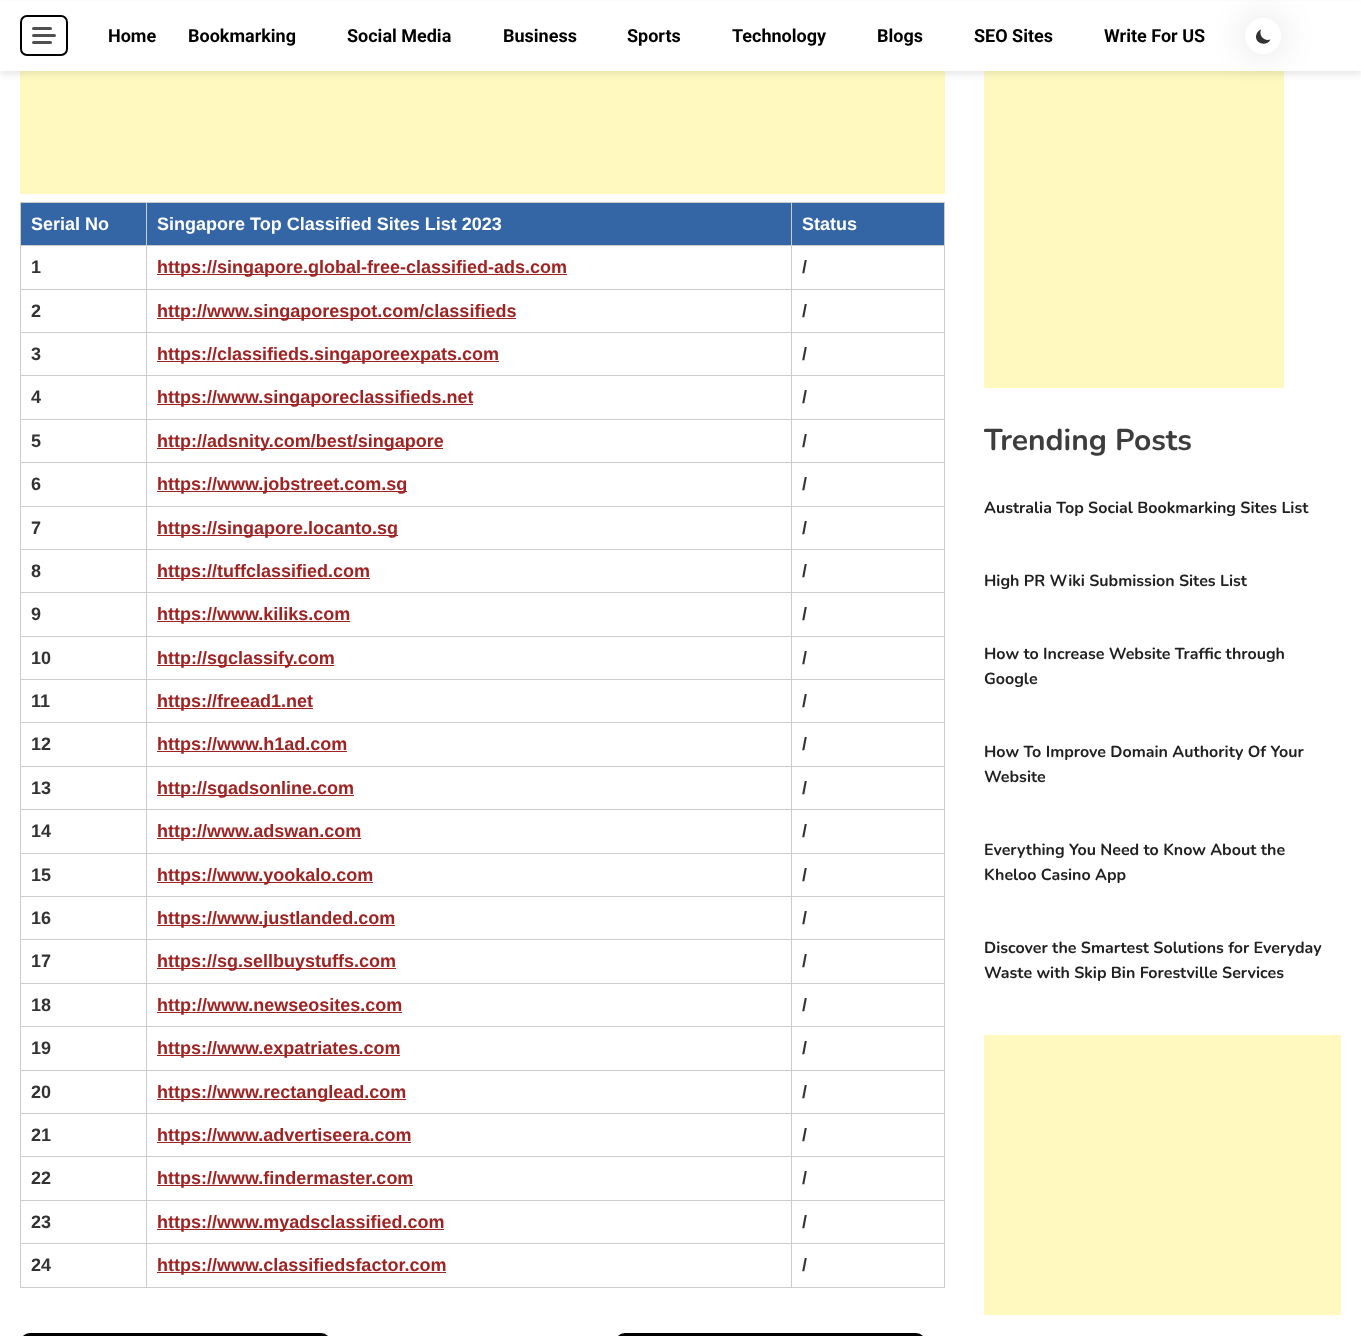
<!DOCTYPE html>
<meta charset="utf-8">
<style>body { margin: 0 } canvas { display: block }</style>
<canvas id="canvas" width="1361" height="1336"></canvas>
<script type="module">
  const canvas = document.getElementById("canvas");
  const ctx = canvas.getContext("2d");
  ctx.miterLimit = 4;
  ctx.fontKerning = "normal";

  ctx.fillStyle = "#ffffff";
  ctx.fillRect(0, 0, 1361, 1336);
  ctx.fillStyle = "#fff9c0";
  ctx.fillRect(20, 71, 925, 123);
  ctx.fillRect(984, 71, 300, 317);
  ctx.fillStyle = "rgba(53, 53, 53, 0.1)";
  ctx.filter = "blur(3px)";
  ctx.beginPath();
  ctx.rect(0, 4, 1361, 71);
  ctx.fill();
  ctx.filter = "none";
  ctx.fillStyle = "#ffffff";
  ctx.fillRect(0, 1, 1361, 70);
  ctx.beginPath();
  ctx.roundRect(21, 16, 46, 39, 6);
  ctx.strokeStyle = "#000000";
  ctx.lineWidth = 2;
  ctx.stroke();
  ctx.fillStyle = "#505050";
  ctx.beginPath();
  ctx.roundRect(32, 27, 20, 3, 1.5);
  ctx.fill();
  ctx.beginPath();
  ctx.roundRect(32, 34, 24, 3, 1.5);
  ctx.fill();
  ctx.beginPath();
  ctx.roundRect(32, 41, 20, 3, 1.5);
  ctx.fill();
  ctx.font = "bold 18px Roboto";
  ctx.fillStyle = "#000000";
  ctx.fillText("Home", 108, 42);
  ctx.fillText("Bookmarking", 188, 42);
  ctx.fillText("Social Media", 347, 42);
  ctx.fillText("Business", 503, 42);
  ctx.fillText("Sports", 627, 42);
  ctx.fillText("Technology", 732, 42);
  ctx.fillText("Blogs", 877, 42);
  ctx.fillText("SEO Sites", 974, 42);
  ctx.fillText("Write For US", 1104, 42);
  ctx.fillStyle = "rgba(0, 0, 0, 0.13)";
  ctx.filter = "blur(17.5px)";
  ctx.beginPath();
  ctx.roundRect(1245, 18, 36, 36, 18);
  ctx.fill();
  ctx.filter = "none";
  ctx.fillStyle = "#ffffff";
  ctx.beginPath();
  ctx.arc(1263, 36, 18, 0, Math.PI * 2);
  ctx.fill();
  ctx.fillStyle = "#333333";
  ctx.beginPath();
  ctx.moveTo(1270.5, 39.5);
  ctx.bezierCurveTo(1264, 41.5, 1258.5, 35.5, 1261, 29.5);
  ctx.bezierCurveTo(1259.5, 30, 1257.5, 31.5, 1257, 33);
  ctx.bezierCurveTo(1252, 42, 1266, 48.5, 1270.5, 39.5);
  ctx.closePath();
  ctx.fill();
  ctx.fillStyle = "#3465a4";
  ctx.fillRect(21, 203, 125, 42);
  ctx.fillStyle = "#cccccc";
  ctx.fillRect(791, 202, 154, 1);
  ctx.fillRect(791, 245, 154, 1);
  ctx.fillRect(791, 289, 154, 1);
  ctx.fillRect(791, 332, 154, 1);
  ctx.fillRect(791, 375, 154, 1);
  ctx.fillRect(791, 419, 154, 1);
  ctx.fillRect(791, 462, 154, 1);
  ctx.fillRect(791, 506, 154, 1);
  ctx.fillRect(791, 549, 154, 1);
  ctx.fillRect(791, 592, 154, 1);
  ctx.fillRect(791, 636, 154, 1);
  ctx.fillRect(791, 679, 154, 1);
  ctx.fillRect(791, 722, 154, 1);
  ctx.fillRect(791, 766, 154, 1);
  ctx.fillRect(791, 809, 154, 1);
  ctx.fillRect(791, 853, 154, 1);
  ctx.fillRect(791, 896, 154, 1);
  ctx.fillRect(791, 939, 154, 1);
  ctx.fillRect(791, 983, 154, 1);
  ctx.fillRect(791, 1026, 154, 1);
  ctx.fillRect(791, 1070, 154, 1);
  ctx.fillRect(791, 1113, 154, 1);
  ctx.fillRect(791, 1156, 154, 1);
  ctx.fillRect(791, 1200, 154, 1);
  ctx.fillRect(791, 1243, 154, 1);
  ctx.fillRect(944, 1243, 1, 45);
  ctx.fillRect(791, 1287, 154, 1);
  ctx.fillRect(791, 1243, 1, 45);
  ctx.fillRect(146, 1243, 646, 1);
  ctx.fillRect(791, 1200, 1, 44);
  ctx.fillRect(146, 1200, 646, 1);
  ctx.fillRect(791, 1156, 1, 45);
  ctx.fillRect(146, 1156, 646, 1);
  ctx.fillRect(791, 1113, 1, 44);
  ctx.fillRect(146, 1113, 646, 1);
  ctx.fillRect(791, 1070, 1, 44);
  ctx.fillRect(146, 1070, 646, 1);
  ctx.fillRect(791, 1026, 1, 45);
  ctx.fillRect(146, 1026, 646, 1);
  ctx.fillRect(791, 983, 1, 44);
  ctx.fillRect(146, 983, 646, 1);
  ctx.fillRect(791, 939, 1, 45);
  ctx.fillRect(146, 939, 646, 1);
  ctx.fillRect(791, 896, 1, 44);
  ctx.fillRect(146, 896, 646, 1);
  ctx.fillRect(791, 853, 1, 44);
  ctx.fillRect(146, 853, 646, 1);
  ctx.fillRect(791, 809, 1, 45);
  ctx.fillRect(146, 809, 646, 1);
  ctx.fillRect(791, 766, 1, 44);
  ctx.fillRect(146, 766, 646, 1);
  ctx.fillRect(791, 722, 1, 45);
  ctx.fillRect(146, 722, 646, 1);
  ctx.fillRect(791, 679, 1, 44);
  ctx.fillRect(146, 679, 646, 1);
  ctx.fillRect(791, 636, 1, 44);
  ctx.fillRect(146, 636, 646, 1);
  ctx.fillRect(791, 592, 1, 45);
  ctx.fillRect(146, 592, 646, 1);
  ctx.fillRect(791, 549, 1, 44);
  ctx.fillRect(146, 549, 646, 1);
  ctx.fillRect(791, 506, 1, 44);
  ctx.fillRect(146, 506, 646, 1);
  ctx.fillRect(791, 462, 1, 45);
  ctx.fillRect(146, 462, 646, 1);
  ctx.fillRect(791, 419, 1, 44);
  ctx.fillRect(146, 419, 646, 1);
  ctx.fillRect(791, 375, 1, 45);
  ctx.fillRect(146, 375, 646, 1);
  ctx.fillRect(791, 332, 1, 44);
  ctx.fillRect(146, 332, 646, 1);
  ctx.fillRect(791, 289, 1, 44);
  ctx.fillRect(146, 289, 646, 1);
  ctx.fillRect(791, 245, 1, 45);
  ctx.fillRect(146, 245, 646, 1);
  ctx.fillRect(791, 202, 1, 44);
  ctx.fillRect(146, 202, 646, 1);
  ctx.fillRect(146, 1287, 646, 1);
  ctx.fillRect(146, 1243, 1, 45);
  ctx.fillRect(20, 1243, 127, 1);
  ctx.fillRect(146, 1200, 1, 44);
  ctx.fillRect(20, 1200, 127, 1);
  ctx.fillRect(146, 1156, 1, 45);
  ctx.fillRect(20, 1156, 127, 1);
  ctx.fillRect(146, 1113, 1, 44);
  ctx.fillRect(20, 1113, 127, 1);
  ctx.fillRect(146, 1070, 1, 44);
  ctx.fillRect(20, 1070, 127, 1);
  ctx.fillRect(146, 1026, 1, 45);
  ctx.fillRect(20, 1026, 127, 1);
  ctx.fillRect(146, 983, 1, 44);
  ctx.fillRect(20, 983, 127, 1);
  ctx.fillRect(146, 939, 1, 45);
  ctx.fillRect(20, 939, 127, 1);
  ctx.fillRect(146, 896, 1, 44);
  ctx.fillRect(20, 896, 127, 1);
  ctx.fillRect(146, 853, 1, 44);
  ctx.fillRect(20, 853, 127, 1);
  ctx.fillRect(146, 809, 1, 45);
  ctx.fillRect(20, 809, 127, 1);
  ctx.fillRect(146, 766, 1, 44);
  ctx.fillRect(20, 766, 127, 1);
  ctx.fillRect(146, 722, 1, 45);
  ctx.fillRect(20, 722, 127, 1);
  ctx.fillRect(146, 679, 1, 44);
  ctx.fillRect(20, 679, 127, 1);
  ctx.fillRect(146, 636, 1, 44);
  ctx.fillRect(20, 636, 127, 1);
  ctx.fillRect(146, 592, 1, 45);
  ctx.fillRect(20, 592, 127, 1);
  ctx.fillRect(146, 549, 1, 44);
  ctx.fillRect(20, 549, 127, 1);
  ctx.fillRect(146, 506, 1, 44);
  ctx.fillRect(20, 506, 127, 1);
  ctx.fillRect(146, 462, 1, 45);
  ctx.fillRect(20, 462, 127, 1);
  ctx.fillRect(146, 419, 1, 44);
  ctx.fillRect(20, 419, 127, 1);
  ctx.fillRect(146, 375, 1, 45);
  ctx.fillRect(20, 375, 127, 1);
  ctx.fillRect(146, 332, 1, 44);
  ctx.fillRect(20, 332, 127, 1);
  ctx.fillRect(146, 289, 1, 44);
  ctx.fillRect(20, 289, 127, 1);
  ctx.fillRect(146, 245, 1, 45);
  ctx.fillRect(20, 245, 127, 1);
  ctx.fillRect(146, 202, 1, 44);
  ctx.fillRect(20, 202, 127, 1);
  ctx.fillRect(20, 1287, 127, 1);
  ctx.fillRect(20, 1243, 1, 45);
  ctx.fillRect(20, 1200, 1, 44);
  ctx.fillRect(20, 1156, 1, 45);
  ctx.fillRect(20, 1113, 1, 44);
  ctx.fillRect(20, 1070, 1, 44);
  ctx.fillRect(20, 1026, 1, 45);
  ctx.fillRect(20, 983, 1, 44);
  ctx.fillRect(20, 939, 1, 45);
  ctx.fillRect(20, 896, 1, 44);
  ctx.fillRect(20, 853, 1, 44);
  ctx.fillRect(20, 809, 1, 45);
  ctx.fillRect(20, 766, 1, 44);
  ctx.fillRect(20, 722, 1, 45);
  ctx.fillRect(20, 679, 1, 44);
  ctx.fillRect(20, 636, 1, 44);
  ctx.fillRect(20, 592, 1, 45);
  ctx.fillRect(20, 549, 1, 44);
  ctx.fillRect(20, 506, 1, 44);
  ctx.fillRect(20, 462, 1, 45);
  ctx.fillRect(20, 419, 1, 44);
  ctx.fillRect(20, 375, 1, 45);
  ctx.fillRect(20, 332, 1, 44);
  ctx.fillRect(20, 289, 1, 44);
  ctx.fillRect(20, 245, 1, 45);
  ctx.fillRect(20, 202, 1, 44);
  ctx.font = "bold 18px Liberation Sans";
  ctx.fillStyle = "#ffffff";
  ctx.fillText("Serial No", 31, 230);
  ctx.fillStyle = "#3465a4";
  ctx.fillRect(147, 203, 644, 42);
  ctx.fillStyle = "#ffffff";
  ctx.fillText("Singapore Top Classified Sites List 2023", 157, 230);
  ctx.fillStyle = "#3465a4";
  ctx.fillRect(792, 203, 152, 42);
  ctx.fillStyle = "#cccccc";
  ctx.fillRect(944, 1200, 1, 44);
  ctx.fillRect(944, 1156, 1, 45);
  ctx.fillRect(944, 1113, 1, 44);
  ctx.fillRect(944, 1070, 1, 44);
  ctx.fillRect(944, 1026, 1, 45);
  ctx.fillRect(944, 983, 1, 44);
  ctx.fillRect(944, 939, 1, 45);
  ctx.fillRect(944, 896, 1, 44);
  ctx.fillRect(944, 853, 1, 44);
  ctx.fillRect(944, 809, 1, 45);
  ctx.fillRect(944, 766, 1, 44);
  ctx.fillRect(944, 722, 1, 45);
  ctx.fillRect(944, 679, 1, 44);
  ctx.fillRect(944, 636, 1, 44);
  ctx.fillRect(944, 592, 1, 45);
  ctx.fillRect(944, 549, 1, 44);
  ctx.fillRect(944, 506, 1, 44);
  ctx.fillRect(944, 462, 1, 45);
  ctx.fillRect(944, 419, 1, 44);
  ctx.fillRect(944, 375, 1, 45);
  ctx.fillRect(944, 332, 1, 44);
  ctx.fillRect(944, 289, 1, 44);
  ctx.fillRect(944, 245, 1, 45);
  ctx.fillRect(944, 202, 1, 44);
  ctx.fillStyle = "#ffffff";
  ctx.fillText("Status", 802, 230);
  ctx.fillStyle = "#333333";
  ctx.fillText("1", 31, 273);
  ctx.fillStyle = "#a02323";
  ctx.fillRect(157, 274, 410, 1);
  ctx.fillText("https://singapore.global-free-classified-ads.com", 157, 273);
  ctx.fillStyle = "#333333";
  ctx.fillText("/", 802, 273);
  ctx.fillText("2", 31, 317);
  ctx.fillStyle = "#a02323";
  ctx.fillRect(157, 318, 359, 1);
  ctx.fillText("http://www.singaporespot.com/classifieds", 157, 317);
  ctx.fillStyle = "#333333";
  ctx.fillText("/", 802, 317);
  ctx.fillText("3", 31, 360);
  ctx.fillStyle = "#a02323";
  ctx.fillRect(157, 361, 342, 1);
  ctx.fillText("https://classifieds.singaporeexpats.com", 157, 360);
  ctx.fillStyle = "#333333";
  ctx.fillText("/", 802, 360);
  ctx.fillText("4", 31, 403);
  ctx.fillStyle = "#a02323";
  ctx.fillRect(157, 404, 316, 1);
  ctx.fillText("https://www.singaporeclassifieds.net", 157, 403);
  ctx.fillStyle = "#333333";
  ctx.fillText("/", 802, 403);
  ctx.fillText("5", 31, 447);
  ctx.fillStyle = "#a02323";
  ctx.fillRect(157, 448, 286, 1);
  ctx.fillText("http://adsnity.com/best/singapore", 157, 447);
  ctx.fillStyle = "#333333";
  ctx.fillText("/", 802, 447);
  ctx.fillText("6", 31, 490);
  ctx.fillStyle = "#a02323";
  ctx.fillRect(157, 491, 250, 1);
  ctx.fillText("https://www.jobstreet.com.sg", 157, 490);
  ctx.fillStyle = "#333333";
  ctx.fillText("/", 802, 490);
  ctx.fillText("7", 31, 534);
  ctx.fillStyle = "#a02323";
  ctx.fillRect(157, 535, 241, 1);
  ctx.fillText("https://singapore.locanto.sg", 157, 534);
  ctx.fillStyle = "#333333";
  ctx.fillText("/", 802, 534);
  ctx.fillText("8", 31, 577);
  ctx.fillStyle = "#a02323";
  ctx.fillRect(157, 578, 213, 1);
  ctx.fillText("https://tuffclassified.com", 157, 577);
  ctx.fillStyle = "#333333";
  ctx.fillText("/", 802, 577);
  ctx.fillText("9", 31, 620);
  ctx.fillStyle = "#a02323";
  ctx.fillRect(157, 621, 193, 1);
  ctx.fillText("https://www.kiliks.com", 157, 620);
  ctx.fillStyle = "#333333";
  ctx.fillText("/", 802, 620);
  ctx.fillText("10", 31, 664);
  ctx.fillStyle = "#a02323";
  ctx.fillRect(157, 665, 177, 1);
  ctx.fillText("http://sgclassify.com", 157, 664);
  ctx.fillStyle = "#333333";
  ctx.fillText("/", 802, 664);
  ctx.fillText("11", 31, 707);
  ctx.fillStyle = "#a02323";
  ctx.fillRect(157, 708, 156, 1);
  ctx.fillText("https://freead1.net", 157, 707);
  ctx.fillStyle = "#333333";
  ctx.fillText("/", 802, 707);
  ctx.fillText("12", 31, 750);
  ctx.fillStyle = "#a02323";
  ctx.fillRect(157, 751, 190, 1);
  ctx.fillText("https://www.h1ad.com", 157, 750);
  ctx.fillStyle = "#333333";
  ctx.fillText("/", 802, 750);
  ctx.fillText("13", 31, 794);
  ctx.fillStyle = "#a02323";
  ctx.fillRect(157, 795, 197, 1);
  ctx.fillText("http://sgadsonline.com", 157, 794);
  ctx.fillStyle = "#333333";
  ctx.fillText("/", 802, 794);
  ctx.fillText("14", 31, 837);
  ctx.fillStyle = "#a02323";
  ctx.fillRect(157, 838, 204, 1);
  ctx.fillText("http://www.adswan.com", 157, 837);
  ctx.fillStyle = "#333333";
  ctx.fillText("/", 802, 837);
  ctx.fillText("15", 31, 881);
  ctx.fillStyle = "#a02323";
  ctx.fillRect(157, 882, 216, 1);
  ctx.fillText("https://www.yookalo.com", 157, 881);
  ctx.fillStyle = "#333333";
  ctx.fillText("/", 802, 881);
  ctx.fillText("16", 31, 924);
  ctx.fillStyle = "#a02323";
  ctx.fillRect(157, 925, 238, 1);
  ctx.fillText("https://www.justlanded.com", 157, 924);
  ctx.fillStyle = "#333333";
  ctx.fillText("/", 802, 924);
  ctx.fillText("17", 31, 967);
  ctx.fillStyle = "#a02323";
  ctx.fillRect(157, 968, 239, 1);
  ctx.fillText("https://sg.sellbuystuffs.com", 157, 967);
  ctx.fillStyle = "#333333";
  ctx.fillText("/", 802, 967);
  ctx.fillText("18", 31, 1011);
  ctx.fillStyle = "#a02323";
  ctx.fillRect(157, 1012, 245, 1);
  ctx.fillText("http://www.newseosites.com", 157, 1011);
  ctx.fillStyle = "#333333";
  ctx.fillText("/", 802, 1011);
  ctx.fillText("19", 31, 1054);
  ctx.fillStyle = "#a02323";
  ctx.fillRect(157, 1055, 243, 1);
  ctx.fillText("https://www.expatriates.com", 157, 1054);
  ctx.fillStyle = "#333333";
  ctx.fillText("/", 802, 1054);
  ctx.fillText("20", 31, 1098);
  ctx.fillStyle = "#a02323";
  ctx.fillRect(157, 1099, 249, 1);
  ctx.fillText("https://www.rectanglead.com", 157, 1098);
  ctx.fillStyle = "#333333";
  ctx.fillText("/", 802, 1098);
  ctx.fillText("21", 31, 1141);
  ctx.fillStyle = "#a02323";
  ctx.fillRect(157, 1142, 254, 1);
  ctx.fillText("https://www.advertiseera.com", 157, 1141);
  ctx.fillStyle = "#333333";
  ctx.fillText("/", 802, 1141);
  ctx.fillText("22", 31, 1184);
  ctx.fillStyle = "#a02323";
  ctx.fillRect(157, 1185, 256, 1);
  ctx.fillText("https://www.findermaster.com", 157, 1184);
  ctx.fillStyle = "#333333";
  ctx.fillText("/", 802, 1184);
  ctx.fillText("23", 31, 1228);
  ctx.fillStyle = "#a02323";
  ctx.fillRect(157, 1229, 287, 1);
  ctx.fillText("https://www.myadsclassified.com", 157, 1228);
  ctx.fillStyle = "#333333";
  ctx.fillText("/", 802, 1228);
  ctx.fillText("24", 31, 1271);
  ctx.fillStyle = "#a02323";
  ctx.fillRect(157, 1272, 289, 1);
  ctx.fillText("https://www.classifiedsfactor.com", 157, 1271);
  ctx.fillStyle = "#333333";
  ctx.fillText("/", 802, 1271);
  ctx.beginPath();
  ctx.roundRect(21.5, 1334.5, 308, 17, 12.5);
  ctx.lineWidth = 3;
  ctx.stroke();
  ctx.beginPath();
  ctx.roundRect(616.5, 1334.5, 308, 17, 12.5);
  ctx.stroke();
  ctx.font = "200 30px Nunito";
  ctx.fillStyle = "#3d3d3d";
  ctx.fillText("Trending Posts", 984, 450);
  ctx.font = "200 16px Nunito";
  ctx.fillStyle = "#212121";
  ctx.fillText("Australia Top Social Bookmarking Sites List", 984, 513);
  ctx.fillText("High PR Wiki Submission Sites List", 984, 586);
  ctx.fillText("How to Increase Website Traffic through", 984, 659);
  ctx.fillText("Google", 984, 684);
  ctx.fillText("How To Improve Domain Authority Of Your", 984, 757);
  ctx.fillText("Website", 984, 782);
  ctx.fillText("Everything You Need to Know About the", 984, 855);
  ctx.fillText("Kheloo Casino App", 984, 880);
  ctx.fillText("Discover the Smartest Solutions for Everyday", 984, 953);
  ctx.fillText("Waste with Skip Bin Forestville Services", 984, 978);
  ctx.fillStyle = "#fff9c0";
  ctx.fillRect(984, 1035, 357, 280);
</script>
